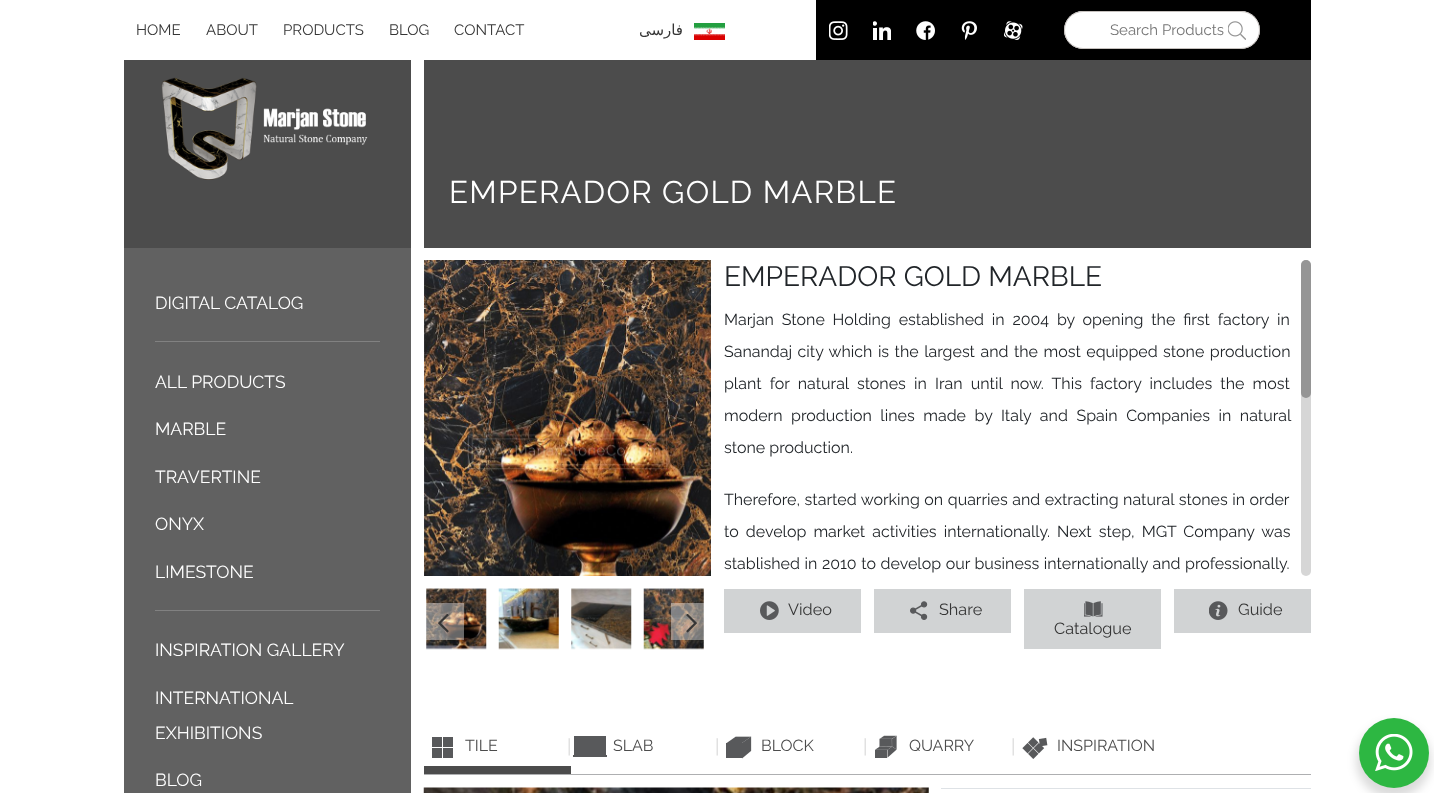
<!DOCTYPE html>
<meta charset="utf-8">
<style>body { margin: 0 } canvas { display: block }</style>
<canvas id="canvas" width="1434" height="793"></canvas>
<script type="module">
  const canvas = document.getElementById("canvas");
  const ctx = canvas.getContext("2d");
  ctx.miterLimit = 4;
  ctx.fontKerning = "normal";
  async function loadImage(src) {
    const img = new Image();
    img.src = src;
    await img.decode();
    return img;
  }

  ctx.fillStyle = "#ffffff";
  ctx.fillRect(0, 0, 1434, 793);
  ctx.font = "100 15px Raleway";
  ctx.fillStyle = "#363636";
  ctx.fillText("HOME", 136, 35);
  ctx.fillText("ABOUT", 206, 35);
  ctx.fillText("PRODUCTS", 283, 35);
  ctx.fillText("BLOG", 389, 35);
  ctx.fillText("CONTACT", 454, 35);
  ctx.direction = "rtl";
  ctx.font = "15px DejaVu Sans";
  ctx.fillText("فارسی", 683, 35);
  ctx.drawImage(await loadImage("img1.png"), 694, 23, 31, 17);
  ctx.fillStyle = "#000000";
  ctx.fillRect(816, 0, 495, 60);
  ctx.drawImage(await loadImage("img2.png"), 829, 21, 19, 19);
  ctx.drawImage(await loadImage("img3.png"), 873, 21, 18, 19);
  ctx.drawImage(await loadImage("img4.png"), 916, 21, 19, 19);
  ctx.drawImage(await loadImage("img5.png"), 961, 21, 16, 19);
  ctx.drawImage(await loadImage("img6.png"), 1004, 21, 19, 19);
  ctx.fillStyle = "#ffffff";
  ctx.beginPath();
  ctx.roundRect(1064, 11, 196, 38, 19);
  ctx.fill();
  ctx.drawImage(await loadImage("img7.png"), 1228, 21, 18, 19);
  ctx.beginPath();
  ctx.roundRect(1064.5, 11.5, 195, 37, 18.5);
  ctx.strokeStyle = "#c5c0bd";
  ctx.stroke();
  ctx.direction = "ltr";
  ctx.font = "100 15px Raleway";
  ctx.fillStyle = "#757575";
  ctx.fillText("Search Products", 1110, 35);
  ctx.fillStyle = "#616161";
  ctx.fillRect(124, 248, 287, 545);
  ctx.fillStyle = "#4c4c4c";
  ctx.fillRect(124, 60, 287, 188);
  ctx.drawImage(await loadImage("img8.png"), 161, 77, 207, 103);
  ctx.fillStyle = "#818181";
  ctx.fillRect(155, 341, 225, 1);
  ctx.font = "100 17.5px Raleway";
  ctx.fillStyle = "#ffffff";
  ctx.fillText("DIGITAL CATALOG", 155, 309);
  ctx.fillStyle = "#818181";
  ctx.fillRect(155, 610, 225, 1);
  ctx.fillStyle = "#ffffff";
  ctx.fillText("ALL PRODUCTS", 155, 388);
  ctx.fillText("MARBLE", 155, 435);
  ctx.fillText("TRAVERTINE", 155, 483);
  ctx.fillText("ONYX", 155, 530);
  ctx.fillText("LIMESTONE", 155, 578);
  ctx.fillText("INSPIRATION GALLERY", 155, 656);
  ctx.fillText("INTERNATIONAL", 155, 704);
  ctx.fillText("EXHIBITIONS", 155, 739);
  ctx.fillText("BLOG", 155, 786);
  ctx.fillStyle = "#4c4c4c";
  ctx.fillRect(424, 60, 887, 188);
  ctx.letterSpacing = "1.25px";
  ctx.font = "100 31.25px Raleway";
  ctx.fillStyle = "#ffffff";
  ctx.fillText("EMPERADOR GOLD MARBLE", 449, 203);
  ctx.drawImage(await loadImage("img9.png"), 424, 260, 287, 316);
  ctx.drawImage(await loadImage("img10.png"), 426, 588, 61, 62);
  ctx.drawImage(await loadImage("img11.png"), 498, 588, 61, 62);
  ctx.drawImage(await loadImage("img12.png"), 571, 588, 61, 62);
  ctx.drawImage(await loadImage("img13.png"), 643, 588, 61, 62);
  ctx.fillStyle = "rgba(255, 255, 255, 0.4)";
  ctx.fillRect(426, 603, 38, 37);
  ctx.drawImage(await loadImage("img14.png"), 438, 614, 11, 19);
  ctx.fillRect(671, 603, 33, 37);
  ctx.drawImage(await loadImage("img15.png"), 686, 614, 11, 19);
  ctx.letterSpacing = "0px";
  ctx.font = "100 28px Raleway";
  ctx.fillStyle = "#212529";
  ctx.fillText("EMPERADOR GOLD MARBLE", 724, 286);
  ctx.wordSpacing = "3.75px";
  ctx.font = "100 16px Raleway";
  ctx.fillText("Marjan Stone Holding established in 2004 by opening the first factory in", 724, 325);
  ctx.wordSpacing = "1.4px";
  ctx.fillText("Sanandaj city which is the largest and the most equipped stone production", 724, 357);
  ctx.wordSpacing = "4.1px";
  ctx.fillText("plant for natural stones in Iran until now. This factory includes the most", 724, 389);
  ctx.wordSpacing = "4.5px";
  ctx.fillText("modern production lines made by Italy and Spain Companies in natural", 724, 421);
  ctx.wordSpacing = "0px";
  ctx.fillText("stone production.", 724, 453);
  ctx.wordSpacing = "0.5px";
  ctx.fillText("Therefore, started working on quarries and extracting natural stones in order", 724, 505);
  ctx.wordSpacing = "3px";
  ctx.fillText("to develop market activities internationally. Next step, MGT Company was", 724, 537);
  ctx.wordSpacing = "0.5px";
  ctx.fillText("stablished in 2010 to develop our business internationally and professionally.", 724, 569);
  ctx.fillStyle = "#d6d6d6";
  ctx.beginPath();
  ctx.roundRect(1301, 260, 10, 316, 5);
  ctx.fill();
  ctx.fillStyle = "#959595";
  ctx.beginPath();
  ctx.roundRect(1301, 260, 10, 138, 5);
  ctx.fill();
  ctx.fillStyle = "#d1d3d4";
  ctx.fillRect(724, 589, 137, 44);
  ctx.drawImage(await loadImage("img16.png"), 760, 601, 19, 19);
  ctx.wordSpacing = "0px";
  ctx.font = "100 16.25px Raleway";
  ctx.fillStyle = "#363636";
  ctx.fillText("Video", 788, 615);
  ctx.fillStyle = "#d1d3d4";
  ctx.fillRect(874, 589, 137, 44);
  ctx.drawImage(await loadImage("img17.png"), 910, 601, 18, 19);
  ctx.fillStyle = "#363636";
  ctx.fillText("Share", 939, 615);
  ctx.fillStyle = "#d1d3d4";
  ctx.fillRect(1174, 589, 137, 44);
  ctx.drawImage(await loadImage("img18.png"), 1209, 601, 19, 19);
  ctx.fillStyle = "#363636";
  ctx.fillText("Guide", 1238, 615);
  ctx.fillStyle = "#d1d3d4";
  ctx.fillRect(1024, 589, 137, 60);
  ctx.drawImage(await loadImage("img19.png"), 1084, 601, 19, 16);
  ctx.fillStyle = "#363636";
  ctx.fillText("Catalogue", 1054, 634);
  ctx.fillStyle = "#aeafb1";
  ctx.fillRect(424, 774, 887, 1);
  ctx.fillStyle = "#4c4c4c";
  ctx.fillRect(424, 766, 147, 8);
  ctx.fillStyle = "#58595b";
  ctx.fillRect(432, 737, 10, 10);
  ctx.fillRect(443, 737, 10, 10);
  ctx.font = "100 16px Raleway";
  ctx.fillStyle = "#4c4c4c";
  ctx.fillText("TILE", 465, 751);
  ctx.font = "100 19px Raleway";
  ctx.fillStyle = "#d9d9d9";
  ctx.fillText("|", 567, 753);
  ctx.fillStyle = "#58595b";
  ctx.fillRect(432, 748, 10, 10);
  ctx.fillRect(443, 748, 10, 10);
  ctx.fillRect(573, 736, 34, 21);
  ctx.fillStyle = "#ffffff";
  ctx.fillRect(573, 735, 1, 20);
  ctx.fillRect(606, 735, 1, 20);
  ctx.font = "100 16px Raleway";
  ctx.fillStyle = "#4c4c4c";
  ctx.fillText("SLAB", 613, 751);
  ctx.font = "100 19px Raleway";
  ctx.fillStyle = "#d9d9d9";
  ctx.fillText("|", 715, 753);
  ctx.drawImage(await loadImage("img20.png"), 726, 736, 26, 23);
  ctx.font = "100 16px Raleway";
  ctx.fillStyle = "#4c4c4c";
  ctx.fillText("BLOCK", 761, 751);
  ctx.font = "100 19px Raleway";
  ctx.fillStyle = "#d9d9d9";
  ctx.fillText("|", 863, 753);
  ctx.drawImage(await loadImage("img21.png"), 875, 735, 22, 23);
  ctx.font = "100 16px Raleway";
  ctx.fillStyle = "#4c4c4c";
  ctx.fillText("QUARRY", 909, 751);
  ctx.font = "100 19px Raleway";
  ctx.fillStyle = "#d9d9d9";
  ctx.fillText("|", 1011, 753);
  ctx.drawImage(await loadImage("img22.png"), 1022, 737, 26, 22);
  ctx.font = "100 16px Raleway";
  ctx.fillStyle = "#4c4c4c";
  ctx.fillText("INSPIRATION", 1057, 751);
  ctx.drawImage(await loadImage("img23.png"), 423, 787, 506, 6);
  ctx.fillStyle = "#dee2e6";
  ctx.fillRect(941, 788, 370, 1);
  ctx.fillStyle = "rgba(0, 0, 0, 0.14)";
  ctx.filter = "blur(5px)";
  ctx.beginPath();
  ctx.roundRect(1356, 723, 75, 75, 37.5);
  ctx.fill();
  ctx.filter = "none";
  ctx.fillStyle = "#2db742";
  ctx.beginPath();
  ctx.arc(1394, 753, 35, 0, Math.PI * 2);
  ctx.fill();
  ctx.drawImage(await loadImage("img24.png"), 1375, 734, 38, 37);
</script>
